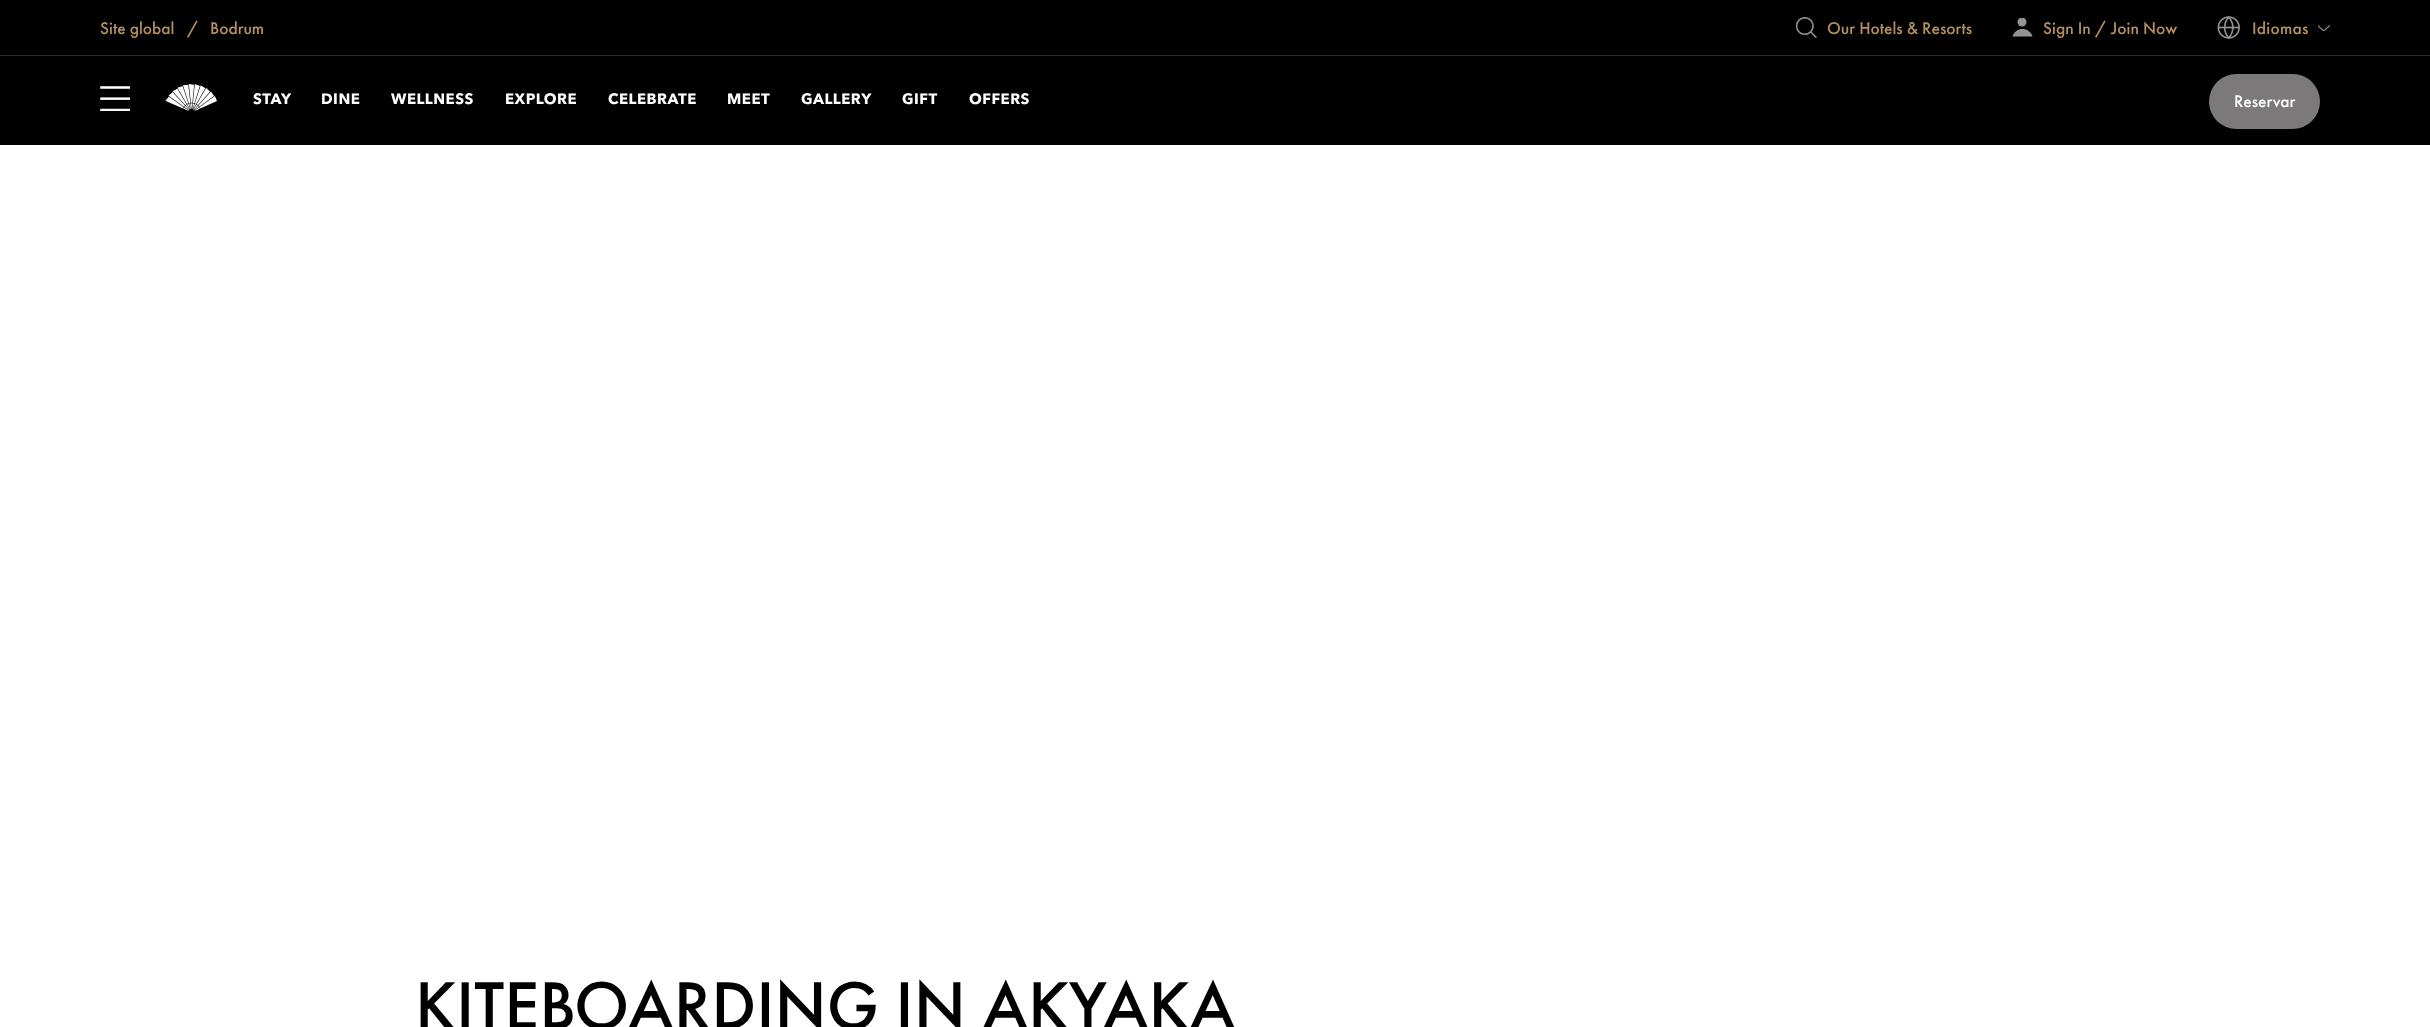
<!DOCTYPE html>
<meta charset="utf-8">
<style>body { margin: 0 } canvas { display: block }</style>
<canvas id="canvas" width="2430" height="1027"></canvas>
<script type="module">
  const canvas = document.getElementById("canvas");
  const ctx = canvas.getContext("2d");
  ctx.miterLimit = 4;
  ctx.fontKerning = "normal";
  async function loadImage(src) {
    const img = new Image();
    img.src = src;
    await img.decode();
    return img;
  }

  ctx.fillStyle = "#ffffff";
  ctx.fillRect(0, 0, 2430, 1027);
  ctx.fillStyle = "#000000";
  ctx.fillRect(0, 0, 2430, 55);
  ctx.font = "500 17.5px Futura PT";
  ctx.fillStyle = "#b59060";
  ctx.fillText("Site global", 100, 34);
  ctx.fillText("/", 187, 34);
  ctx.fillText("Bodrum", 210, 34);
  ctx.drawImage(await loadImage("img1.png"), 1795, 17, 22, 21);
  ctx.fillText("Our Hotels & Resorts", 1827, 34);
  ctx.fillStyle = "#939393";
  ctx.beginPath();
  ctx.moveTo(2012.5, 36.5);
  ctx.lineTo(2032.5, 36.5);
  ctx.bezierCurveTo(2029.5, 26.5, 2015.5, 26.5, 2012.5, 36.5);
  ctx.closePath();
  ctx.fill("evenodd");
  ctx.save();
  ctx.beginPath();
  ctx.rect(2013, 18, 20, 20);
  ctx.clip();
  ctx.beginPath();
  ctx.arc(2022, 22, 4.5, 0, Math.PI * 2);
  ctx.fill();
  ctx.restore();
  ctx.fillStyle = "#b59060";
  ctx.fillText("Sign In / Join Now", 2043, 34);
  ctx.drawImage(await loadImage("img2.png"), 2217, 16, 23, 23);
  ctx.letterSpacing = "0.25px";
  ctx.fillText("Idiomas", 2252, 34);
  ctx.drawImage(await loadImage("img3.png"), 2318, 25, 12, 6);
  ctx.fillStyle = "#000000";
  ctx.fillRect(0, 56, 2430, 89);
  ctx.fillStyle = "#312a29";
  ctx.fillRect(0, 55, 2430, 1);
  ctx.drawImage(await loadImage("img4.png"), 100, 86, 30, 25);
  ctx.drawImage(await loadImage("img5.png"), 165, 84, 52, 27);
  ctx.letterSpacing = "0.5px";
  ctx.font = "bold 15px Avenir Next";
  ctx.fillStyle = "#ffffff";
  ctx.fillText("STAY", 253, 104);
  ctx.fillText("DINE", 321, 104);
  ctx.fillText("WELLNESS", 391, 104);
  ctx.fillText("EXPLORE", 505, 104);
  ctx.fillText("CELEBRATE", 608, 104);
  ctx.fillText("MEET", 727, 104);
  ctx.fillText("GALLERY", 801, 104);
  ctx.fillText("GIFT", 902, 104);
  ctx.fillText("OFFERS", 969, 104);
  ctx.fillStyle = "#7c797a";
  ctx.beginPath();
  ctx.roundRect(2209, 74, 111, 55, 27.5);
  ctx.fill();
  ctx.letterSpacing = "0px";
  ctx.font = "500 17.5px Futura PT";
  ctx.fillStyle = "#ffffff";
  ctx.fillText("Reservar", 2234, 107);
  ctx.font = "500 70px Futura PT";
  ctx.fillStyle = "#000000";
  ctx.fillText("KITEBOARDING IN AKYAKA", 415, 1029);
</script>
